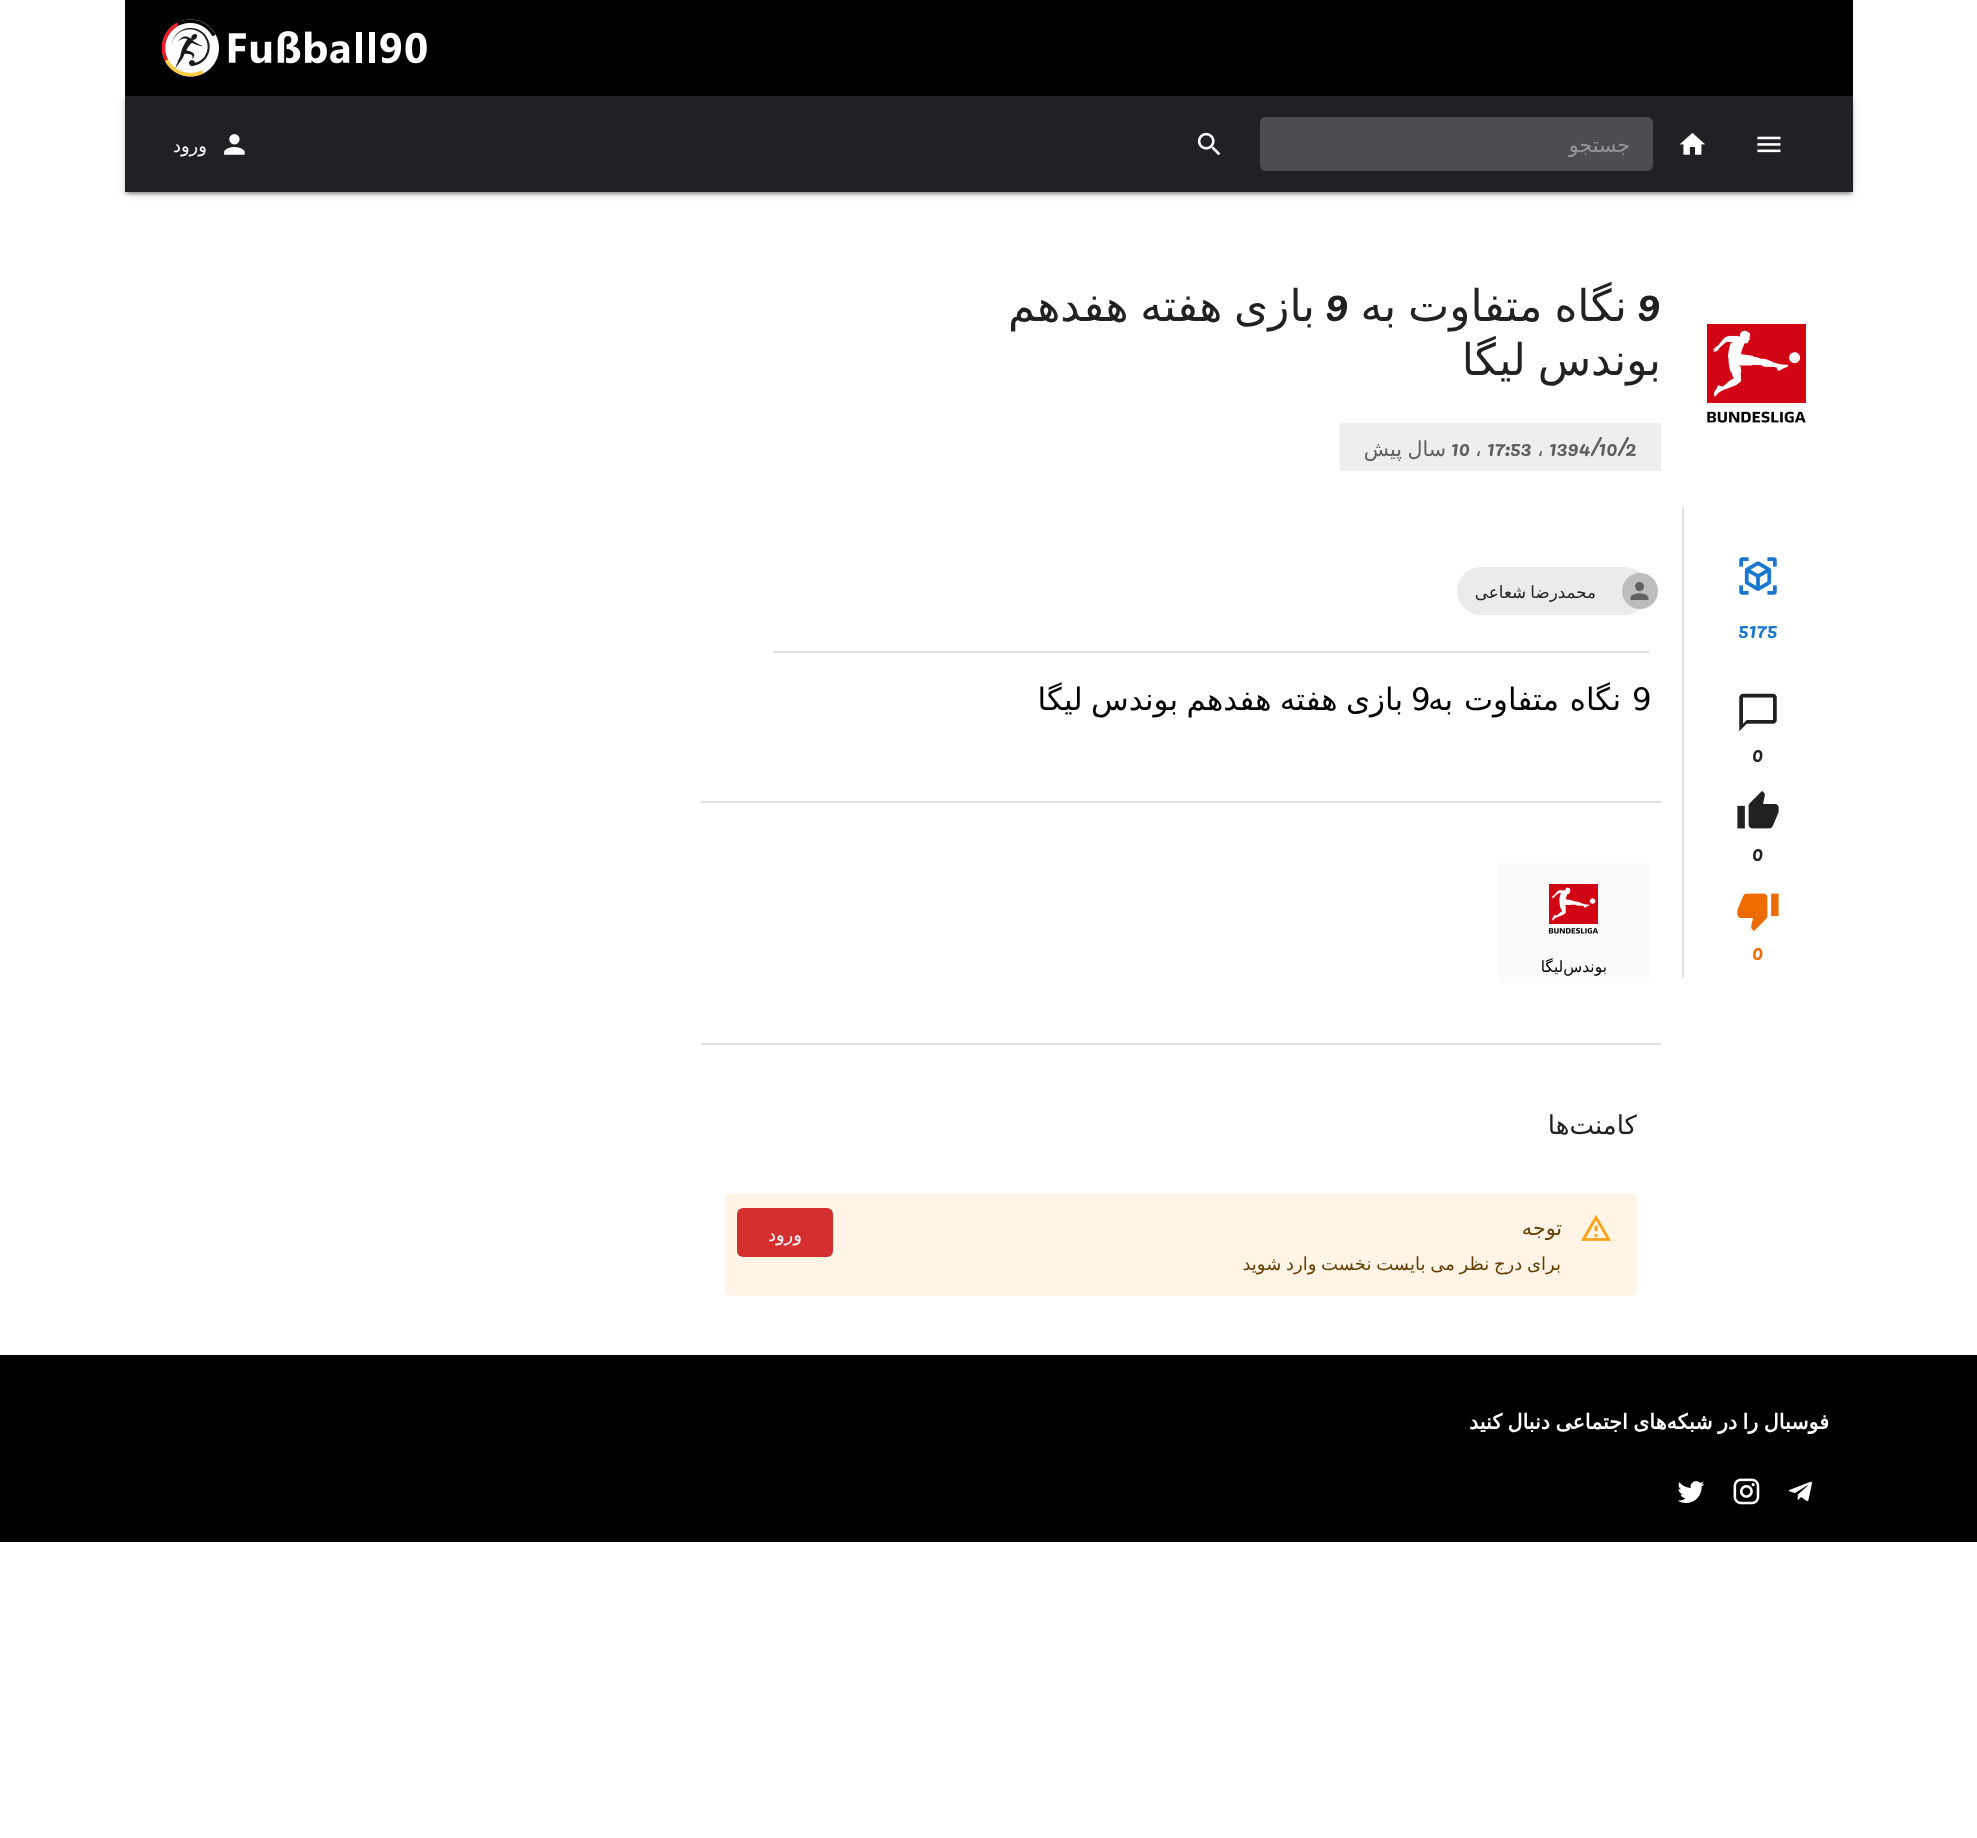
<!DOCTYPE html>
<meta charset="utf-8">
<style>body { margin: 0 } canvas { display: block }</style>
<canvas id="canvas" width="1977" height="1838"></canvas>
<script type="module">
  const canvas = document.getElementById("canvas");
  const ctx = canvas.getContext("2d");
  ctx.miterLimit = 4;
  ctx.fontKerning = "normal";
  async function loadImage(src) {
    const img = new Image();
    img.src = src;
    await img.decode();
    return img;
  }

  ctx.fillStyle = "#ffffff";
  ctx.fillRect(0, 0, 1977, 1838);
  ctx.fillStyle = "#000000";
  ctx.fillRect(125, 0, 1728, 96);
  ctx.drawImage(await loadImage("img1.png"), 228, 31, 199, 33);
  ctx.drawImage(await loadImage("img2.png"), 161, 19, 58, 58);
  ctx.fillStyle = "rgba(0, 0, 0, 0.12)";
  ctx.filter = "blur(4px)";
  ctx.beginPath();
  ctx.rect(125, 98, 1728, 96);
  ctx.fill();
  ctx.filter = "none";
  ctx.fillStyle = "rgba(0, 0, 0, 0.14)";
  ctx.filter = "blur(1.5px)";
  ctx.beginPath();
  ctx.rect(125, 99, 1728, 96);
  ctx.fill();
  ctx.filter = "none";
  ctx.fillStyle = "rgba(0, 0, 0, 0.2)";
  ctx.filter = "blur(1px)";
  ctx.beginPath();
  ctx.rect(128, 104, 1722, 90);
  ctx.fill();
  ctx.filter = "none";
  ctx.fillStyle = "#202125";
  ctx.fillRect(125, 96, 1728, 96);
  ctx.drawImage(await loadImage("img3.png"), 1757, 136, 24, 17);
  ctx.drawImage(await loadImage("img4.png"), 1679, 132, 27, 23);
  ctx.fillStyle = "#4d4d51";
  ctx.beginPath();
  ctx.roundRect(1260, 117, 393, 54, 6);
  ctx.fill();
  ctx.direction = "rtl";
  ctx.font = "20.6px DejaVu Sans";
  ctx.fillStyle = "#98989a";
  ctx.fillText("جستجو", 1630, 152);
  ctx.drawImage(await loadImage("img5.png"), 1197, 132, 24, 24);
  ctx.drawImage(await loadImage("img6.png"), 224, 134, 21, 21);
  ctx.font = "18px DejaVu Sans";
  ctx.fillStyle = "#ffffff";
  ctx.fillText("ورود", 207, 152);
  ctx.drawImage(await loadImage("img7.png"), 1707, 324, 99, 99);
  ctx.direction = "ltr";
  ctx.font = "43.75px Pacifico";
  ctx.fillStyle = "#212121";
  ctx.fillText("9", 1637, 321);
  ctx.wordSpacing = "-2px";
  ctx.direction = "rtl";
  ctx.font = "43.75px DejaVu Sans";
  ctx.fillText("نگاه متفاوت به", 1627, 321);
  ctx.wordSpacing = "0px";
  ctx.direction = "ltr";
  ctx.font = "43.75px Pacifico";
  ctx.fillText("9", 1325, 321);
  ctx.wordSpacing = "-2px";
  ctx.direction = "rtl";
  ctx.font = "43.75px DejaVu Sans";
  ctx.fillText("بازی هفته هفدهم", 1315, 321);
  ctx.fillText("بوندس لیگا", 1661, 375);
  ctx.fillStyle = "#eeeeee";
  ctx.fillRect(1340, 423, 321, 48);
  ctx.wordSpacing = "0px";
  ctx.direction = "ltr";
  ctx.font = "20.6px Pacifico";
  ctx.fillStyle = "#5f5f5f";
  ctx.fillText("1394/10/2", 1549, 456);
  ctx.font = "20.6px DejaVu Sans";
  ctx.fillText("،", 1537, 456);
  ctx.font = "20.6px Pacifico";
  ctx.fillText("17:53", 1487, 456);
  ctx.font = "20.6px DejaVu Sans";
  ctx.fillText("،", 1475, 456);
  ctx.font = "20.6px Pacifico";
  ctx.fillText("10", 1451, 456);
  ctx.wordSpacing = "-1px";
  ctx.direction = "rtl";
  ctx.font = "20.6px DejaVu Sans";
  ctx.fillText("سال پیش", 1446, 456);
  ctx.fillStyle = "#e0e0e0";
  ctx.fillRect(1682, 507, 2, 471);
  ctx.drawImage(await loadImage("img8.png"), 1739, 557, 38, 38);
  ctx.wordSpacing = "0px";
  ctx.direction = "ltr";
  ctx.font = "20.6px Pacifico";
  ctx.fillStyle = "#1976d2";
  ctx.fillText("5175", 1738, 638);
  ctx.drawImage(await loadImage("img9.png"), 1739, 693, 38, 39);
  ctx.fillStyle = "#212121";
  ctx.fillText("0", 1752, 762);
  ctx.drawImage(await loadImage("img10.png"), 1737, 791, 42, 38);
  ctx.fillText("0", 1752, 861);
  ctx.drawImage(await loadImage("img11.png"), 1737, 893, 42, 38);
  ctx.fillStyle = "#ed6c02";
  ctx.fillText("0", 1752, 960);
  ctx.fillStyle = "#ebebeb";
  ctx.beginPath();
  ctx.roundRect(1457, 567, 192, 48, 24);
  ctx.fill();
  ctx.fillStyle = "#bdbdbd";
  ctx.beginPath();
  ctx.arc(1640, 591, 18, 0, Math.PI * 2);
  ctx.fill();
  ctx.drawImage(await loadImage("img12.png"), 1630, 582, 19, 18);
  ctx.wordSpacing = "-1px";
  ctx.direction = "rtl";
  ctx.font = "16.75px DejaVu Sans";
  ctx.fillStyle = "#212121";
  ctx.fillText("محمدرضا شعاعی", 1596, 598);
  ctx.fillStyle = "#e0e0e0";
  ctx.fillRect(773, 651, 876, 2);
  ctx.wordSpacing = "0px";
  ctx.direction = "ltr";
  ctx.font = "30.9px DejaVu Sans";
  ctx.fillStyle = "#000000";
  ctx.fillText("9", 1632, 710);
  ctx.wordSpacing = "1px";
  ctx.direction = "rtl";
  ctx.fillText("نگاه متفاوت به", 1621, 710);
  ctx.wordSpacing = "0px";
  ctx.direction = "ltr";
  ctx.fillText("9", 1411, 710);
  ctx.wordSpacing = "-1.5px";
  ctx.direction = "rtl";
  ctx.fillText("بازی هفته هفدهم بوندس لیگا", 1403, 710);
  ctx.fillStyle = "#e0e0e0";
  ctx.fillRect(701, 801, 960, 2);
  ctx.fillStyle = "#fafafa";
  ctx.fillRect(1499, 863, 150, 120);
  ctx.drawImage(await loadImage("img13.png"), 1548, 884, 50, 50);
  ctx.wordSpacing = "0px";
  ctx.font = "15.5px DejaVu Sans";
  ctx.fillStyle = "#000000";
  ctx.fillText("بوندس‌لیگا", 1607, 972);
  ctx.fillStyle = "#e0e0e0";
  ctx.fillRect(701, 1043, 960, 2);
  ctx.font = "26px DejaVu Sans";
  ctx.fillStyle = "#212121";
  ctx.fillText("کامنت‌ها", 1637, 1134);
  ctx.fillStyle = "#fff4e5";
  ctx.beginPath();
  ctx.roundRect(725, 1193, 912, 103, 6);
  ctx.fill();
  ctx.drawImage(await loadImage("img14.png"), 1581, 1215, 30, 26);
  ctx.font = "20.6px DejaVu Sans";
  ctx.fillStyle = "#663c00";
  ctx.fillText("توجه", 1562, 1235);
  ctx.wordSpacing = "-1px";
  ctx.font = "18px DejaVu Sans";
  ctx.fillText("برای درج نظر می بایست نخست وارد شوید", 1561, 1270);
  ctx.fillStyle = "#d32f2f";
  ctx.beginPath();
  ctx.roundRect(737, 1208, 96, 49, 6);
  ctx.fill();
  ctx.wordSpacing = "0px";
  ctx.fillStyle = "#ffffff";
  ctx.fillText("ورود", 802, 1241);
  ctx.fillStyle = "#000000";
  ctx.fillRect(0, 1355, 1977, 187);
  ctx.wordSpacing = "-1px";
  ctx.font = "bold 20.6px DejaVu Sans";
  ctx.fillStyle = "#ffffff";
  ctx.fillText("فوسبال را در شبکه‌های اجتماعی دنبال کنید", 1829, 1429);
  ctx.drawImage(await loadImage("img15.png"), 1788, 1481, 24, 21);
  ctx.drawImage(await loadImage("img16.png"), 1733, 1478, 27, 27);
  ctx.drawImage(await loadImage("img17.png"), 1677, 1481, 28, 22);
</script>
